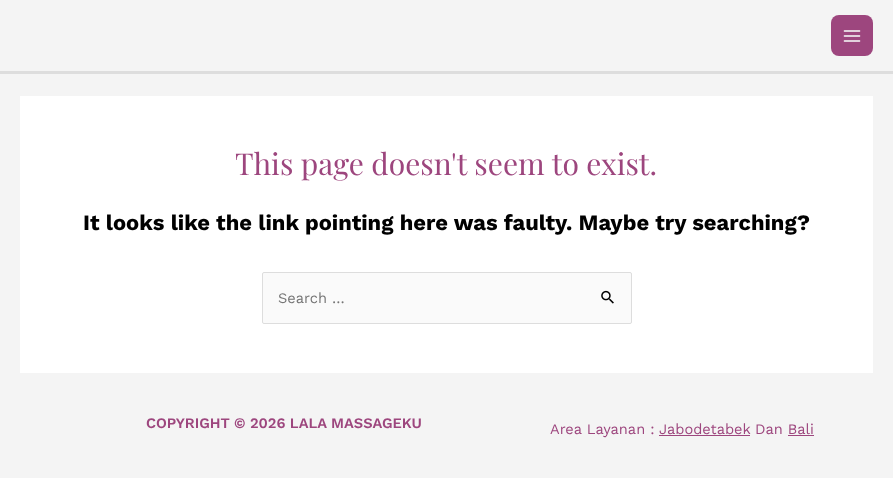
<!DOCTYPE html>
<meta charset="utf-8">
<style>body { margin: 0 } canvas { display: block }</style>
<canvas id="canvas" width="893" height="478"></canvas>
<script type="module">
  const canvas = document.getElementById("canvas");
  const ctx = canvas.getContext("2d");
  ctx.miterLimit = 4;
  ctx.fontKerning = "normal";
  async function loadImage(src) {
    const img = new Image();
    img.src = src;
    await img.decode();
    return img;
  }

  ctx.fillStyle = "#f4f4f4";
  ctx.fillRect(0, 0, 893, 478);
  ctx.fillStyle = "#dddddd";
  ctx.fillRect(0, 71, 893, 3);
  ctx.fillStyle = "#9d467e";
  ctx.beginPath();
  ctx.roundRect(831, 15, 42, 41, 8);
  ctx.fill();
  ctx.drawImage(await loadImage("img1.png"), 843, 30, 18, 12);
  ctx.fillStyle = "#ffffff";
  ctx.fillRect(20, 96, 853, 277);
  ctx.font = "30px Playfair Display";
  ctx.fillStyle = "#9d467e";
  ctx.fillText("This page doesn't seem to exist.", 235, 175);
  ctx.font = "bold 21.9px Work Sans";
  ctx.fillStyle = "#000000";
  ctx.fillText("It looks like the link pointing here was faulty. Maybe try searching?", 83, 230);
  ctx.fillStyle = "#fafafa";
  ctx.beginPath();
  ctx.roundRect(262.5, 272.5, 369, 51, 1.5);
  ctx.fill();
  ctx.strokeStyle = "#dddddd";
  ctx.stroke();
  ctx.font = "14.6px Work Sans";
  ctx.fillStyle = "#757575";
  ctx.fillText("Search …", 278, 303);
  ctx.drawImage(await loadImage("img2.png"), 601, 290, 13, 14);
  ctx.font = "600 14.6px Work Sans";
  ctx.fillStyle = "#9d467e";
  ctx.fillText("COPYRIGHT © 2026 LALA MASSAGEKU", 146, 428);
  ctx.font = "14.6px Work Sans";
  ctx.fillText("Area Layanan :", 550, 434);
  ctx.fillText("Jabodetabek", 659, 434);
  ctx.fillRect(659, 435, 91, 1);
  ctx.fillText("Dan Bali", 755, 434);
  ctx.fillRect(788, 435, 26, 1);
</script>
